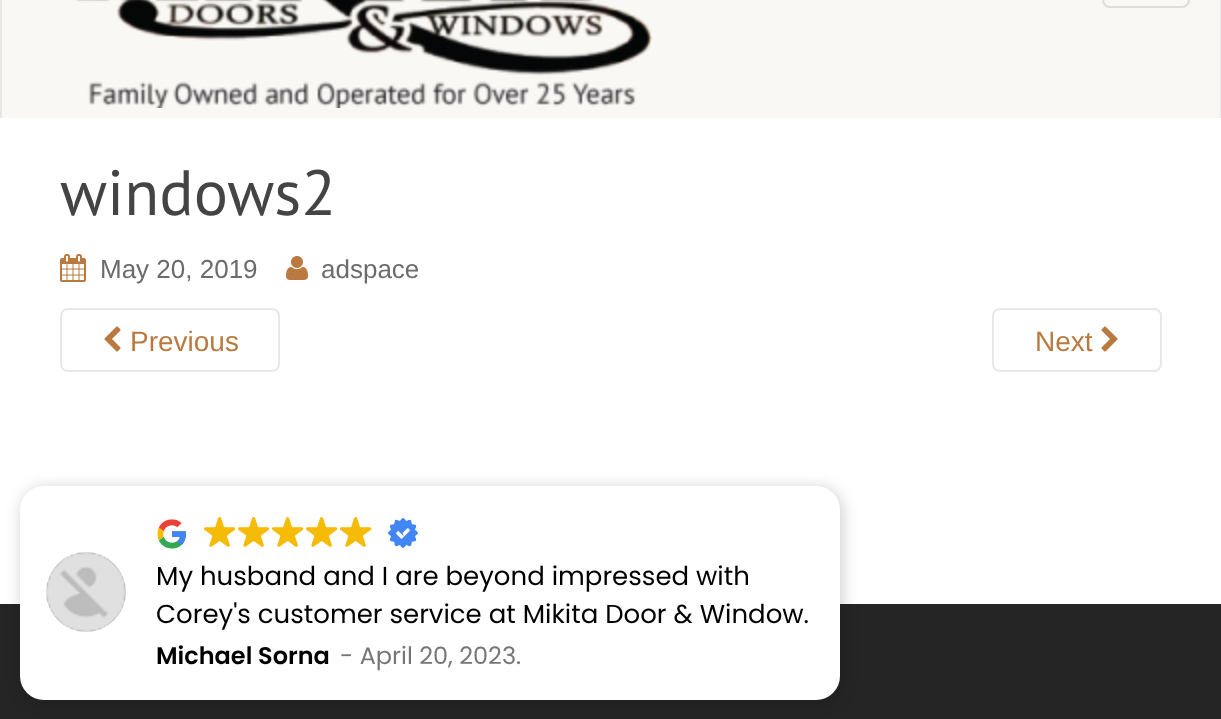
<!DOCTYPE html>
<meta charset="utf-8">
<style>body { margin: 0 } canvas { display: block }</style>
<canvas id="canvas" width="1221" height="719"></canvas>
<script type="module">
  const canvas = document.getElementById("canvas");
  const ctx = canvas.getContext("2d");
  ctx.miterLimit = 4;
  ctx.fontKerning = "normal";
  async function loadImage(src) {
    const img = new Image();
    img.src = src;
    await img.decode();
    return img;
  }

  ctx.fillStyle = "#ffffff";
  ctx.fillRect(0, 0, 1221, 719);
  ctx.fillStyle = "#faf8f5";
  ctx.fillRect(2, 0, 1218, 118);
  ctx.fillStyle = "#e7e7e7";
  ctx.fillRect(1220, 0, 1, 118);
  ctx.fillRect(0, 0, 2, 118);
  ctx.drawImage(await loadImage("img1.png"), 76, 0, 577, 108);
  ctx.beginPath();
  ctx.roundRect(1103, -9, 86, 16, 7);
  ctx.strokeStyle = "#dddddd";
  ctx.lineWidth = 2;
  ctx.stroke();
  ctx.font = "64px PT Sans";
  ctx.fillStyle = "#444444";
  ctx.fillText("windows2", 60, 215);
  ctx.drawImage(await loadImage("img2.png"), 60, 254, 26, 28);
  ctx.font = "26px Liberation Sans";
  ctx.fillStyle = "#6b6b6b";
  ctx.fillText("May 20, 2019", 100, 278);
  ctx.drawImage(await loadImage("img3.png"), 286, 256, 22, 24);
  ctx.fillText("adspace", 321, 278);
  ctx.beginPath();
  ctx.roundRect(61, 309, 218, 62, 7);
  ctx.strokeStyle = "#e8e8e8";
  ctx.stroke();
  ctx.drawImage(await loadImage("img4.png"), 104, 326, 17, 26);
  ctx.font = "28px Liberation Sans";
  ctx.fillStyle = "#ba793e";
  ctx.fillText("Previous", 130, 351);
  ctx.beginPath();
  ctx.roundRect(993, 309, 168, 62, 7);
  ctx.stroke();
  ctx.fillText("Next", 1035, 351);
  ctx.drawImage(await loadImage("img5.png"), 1101, 326, 17, 26);
  ctx.fillStyle = "#252525";
  ctx.fillRect(0, 604, 1221, 115);
  ctx.fillStyle = "rgba(0, 0, 0, 0.2)";
  ctx.filter = "blur(8px)";
  ctx.beginPath();
  ctx.roundRect(22, 488, 820, 214, 24);
  ctx.fill();
  ctx.filter = "none";
  ctx.fillStyle = "#ffffff";
  ctx.beginPath();
  ctx.roundRect(20, 486, 820, 214, 24);
  ctx.fill();
  ctx.drawImage(await loadImage("img6.png"), 46, 552, 80, 80);
  ctx.drawImage(await loadImage("img7.png"), 157, 519, 29, 30);
  ctx.drawImage(await loadImage("img8.png"), 204, 517, 32, 30);
  ctx.drawImage(await loadImage("img8.png"), 238, 517, 32, 30);
  ctx.drawImage(await loadImage("img8.png"), 272, 517, 32, 30);
  ctx.drawImage(await loadImage("img8.png"), 306, 517, 32, 30);
  ctx.drawImage(await loadImage("img8.png"), 340, 517, 32, 30);
  ctx.drawImage(await loadImage("img9.png"), 388, 518, 30, 30);
  ctx.font = "26px Poppins";
  ctx.fillStyle = "#000000";
  ctx.fillText("My husband and I are beyond impressed with", 156, 585);
  ctx.fillText("Corey's customer service at Mikita Door & Window.", 156, 623);
  ctx.font = "600 24px Poppins";
  ctx.fillText("Michael Sorna", 156, 664);
  ctx.font = "24px Poppins";
  ctx.fillStyle = "#767676";
  ctx.fillText("- April 20, 2023.", 340, 664);
</script>
